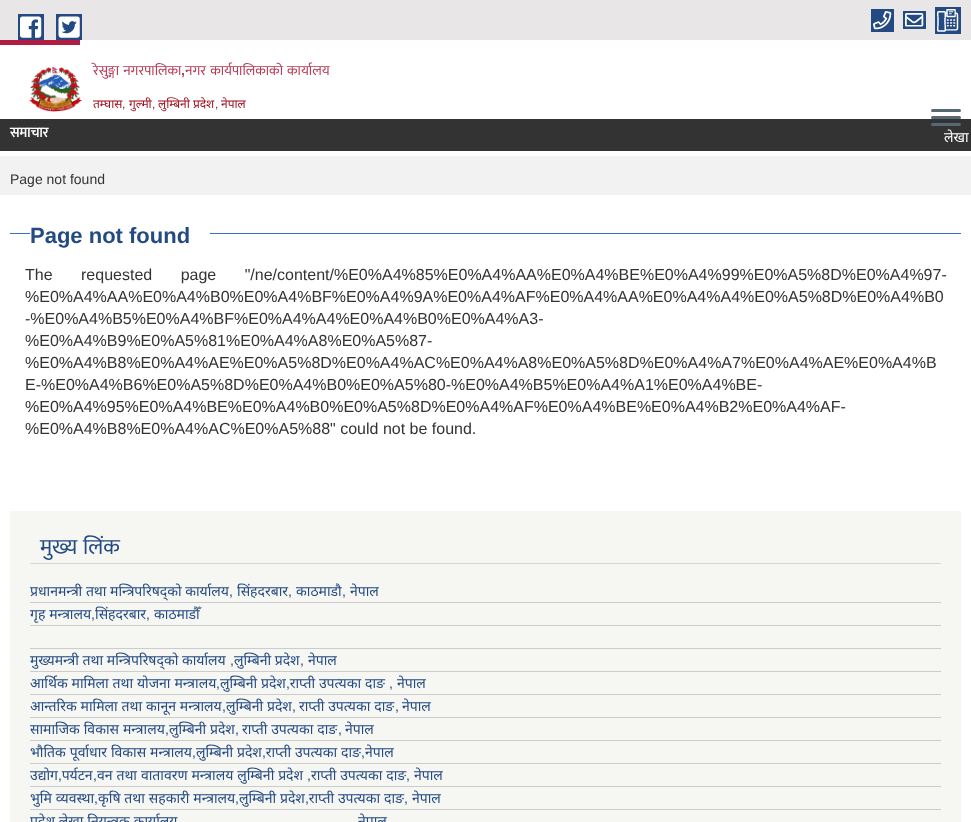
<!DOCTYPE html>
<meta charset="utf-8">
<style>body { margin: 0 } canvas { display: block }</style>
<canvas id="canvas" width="971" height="822"></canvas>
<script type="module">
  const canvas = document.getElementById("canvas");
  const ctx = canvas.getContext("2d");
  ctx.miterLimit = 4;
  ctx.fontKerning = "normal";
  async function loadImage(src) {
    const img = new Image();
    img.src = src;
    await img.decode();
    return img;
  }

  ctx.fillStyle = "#ffffff";
  ctx.fillRect(0, 0, 971, 822);
  ctx.fillStyle = "#e8e6e6";
  ctx.fillRect(0, 0, 971, 40);
  ctx.fillStyle = "#234a83";
  ctx.fillRect(18, 14, 26, 26);
  ctx.fillRect(56, 14, 26, 26);
  ctx.drawImage(await loadImage("img1.png"), 20, 16, 22, 22);
  ctx.drawImage(await loadImage("img2.png"), 58, 16, 22, 22);
  ctx.fillRect(871, 9, 23, 23);
  ctx.fillRect(935, 7, 26, 27);
  ctx.drawImage(await loadImage("img3.png"), 873, 11, 19, 19);
  ctx.fillRect(903, 11, 23, 18);
  ctx.drawImage(await loadImage("img4.png"), 937, 9, 22, 23);
  ctx.drawImage(await loadImage("img5.png"), 905, 13, 19, 14);
  ctx.fillStyle = "#b21c42";
  ctx.fillRect(0, 40, 80, 5);
  ctx.drawImage(await loadImage("img6.png"), 29, 66, 54, 46);
  ctx.wordSpacing = "1px";
  ctx.font = "14px Mukta";
  ctx.fillStyle = "#b83955";
  ctx.fillText("रेसुङ्गा नगरपालिका", 93, 75);
  ctx.wordSpacing = "0px";
  ctx.font = "bold 14px Liberation Sans";
  ctx.fillText(",", 181, 75);
  ctx.wordSpacing = "1px";
  ctx.font = "14px Mukta";
  ctx.fillText("नगर कार्यपालिकाको कार्यालय", 185, 75);
  ctx.wordSpacing = "0px";
  ctx.font = "12px Noto Sans";
  ctx.fillStyle = "#9e0c18";
  ctx.fillText("तम्घास", 93, 108);
  ctx.font = "12px Liberation Sans";
  ctx.fillText(",", 122, 108);
  ctx.font = "12px Noto Sans";
  ctx.fillText("गुल्मी", 129, 108);
  ctx.font = "12px Liberation Sans";
  ctx.fillText(",", 152, 108);
  ctx.font = "12px Noto Sans";
  ctx.fillText("लुम्बिनी प्रदेश", 158, 108);
  ctx.font = "12px Liberation Sans";
  ctx.fillText(",", 215, 108);
  ctx.font = "12px Noto Sans";
  ctx.fillText("नेपाल", 221, 108);
  ctx.fillStyle = "#566973";
  ctx.beginPath();
  ctx.roundRect(931, 109, 30, 3, 1.5);
  ctx.fill();
  ctx.beginPath();
  ctx.roundRect(931, 116, 30, 3, 1.5);
  ctx.fill();
  ctx.fillStyle = "#333333";
  ctx.fillRect(0, 119, 971, 32);
  ctx.fillStyle = "#566973";
  ctx.beginPath();
  ctx.roundRect(931, 123, 30, 3, 1.5);
  ctx.fill();
  ctx.font = "bold 14px Mukta";
  ctx.fillStyle = "#ffffff";
  ctx.fillText("समाचार", 10, 137);
  ctx.wordSpacing = "0.25px";
  ctx.font = "14px Noto Sans";
  ctx.fillText("लेखा", 944, 142);
  ctx.fillStyle = "#f2f2f2";
  ctx.fillRect(0, 156, 971, 39);
  ctx.wordSpacing = "0px";
  ctx.font = "14px Liberation Sans";
  ctx.fillStyle = "#333333";
  ctx.fillText("Page not found", 10, 184);
  ctx.fillStyle = "#376fc2";
  ctx.fillRect(10, 233, 951, 1);
  ctx.fillStyle = "#ffffff";
  ctx.fillRect(30, 233, 180, 1);
  ctx.font = "bold 22px Liberation Sans";
  ctx.fillStyle = "#234a83";
  ctx.fillText("Page not found", 30, 243);
  ctx.wordSpacing = "24px";
  ctx.font = "16px Liberation Sans";
  ctx.fillStyle = "#333333";
  ctx.fillText("The requested page \"/ne/content/%E0%A4%85%E0%A4%AA%E0%A4%BE%E0%A4%99%E0%A5%8D%E0%A4%97-", 25, 280);
  ctx.wordSpacing = "0px";
  ctx.fillText("%E0%A4%AA%E0%A4%B0%E0%A4%BF%E0%A4%9A%E0%A4%AF%E0%A4%AA%E0%A4%A4%E0%A5%8D%E0%A4%B0", 25, 302);
  ctx.fillText("-%E0%A4%B5%E0%A4%BF%E0%A4%A4%E0%A4%B0%E0%A4%A3-", 25, 324);
  ctx.fillText("%E0%A4%B9%E0%A5%81%E0%A4%A8%E0%A5%87-", 25, 346);
  ctx.fillText("%E0%A4%B8%E0%A4%AE%E0%A5%8D%E0%A4%AC%E0%A4%A8%E0%A5%8D%E0%A4%A7%E0%A4%AE%E0%A4%B", 25, 368);
  ctx.fillText("E-%E0%A4%B6%E0%A5%8D%E0%A4%B0%E0%A5%80-%E0%A4%B5%E0%A4%A1%E0%A4%BE-", 25, 390);
  ctx.fillText("%E0%A4%95%E0%A4%BE%E0%A4%B0%E0%A5%8D%E0%A4%AF%E0%A4%BE%E0%A4%B2%E0%A4%AF-", 25, 412);
  ctx.fillText("%E0%A4%B8%E0%A4%AC%E0%A5%88\" could not be found.", 25, 434);
  ctx.fillStyle = "#f6f6f2";
  ctx.fillRect(10, 511, 951, 311);
  ctx.fillStyle = "#d6d6d6";
  ctx.fillRect(30, 563, 911, 1);
  ctx.wordSpacing = "1px";
  ctx.font = "22px Mukta";
  ctx.fillStyle = "#234a83";
  ctx.fillText("मुख्य लिंक", 40, 554);
  ctx.fillStyle = "#cccccc";
  ctx.fillRect(30, 602, 911, 1);
  ctx.wordSpacing = "0px";
  ctx.font = "14px Noto Sans";
  ctx.fillStyle = "#234a83";
  ctx.fillText("प्रधानमन्त्री तथा मन्त्रिपरिषद्को कार्यालय", 30, 596);
  ctx.font = "14px Liberation Sans";
  ctx.fillText(",", 229, 596);
  ctx.font = "14px Noto Sans";
  ctx.fillText("सिंहदरबार", 237, 596);
  ctx.font = "14px Liberation Sans";
  ctx.fillText(",", 288, 596);
  ctx.font = "14px Noto Sans";
  ctx.fillText("काठमाडौ", 296, 596);
  ctx.font = "14px Liberation Sans";
  ctx.fillText(",", 342, 596);
  ctx.font = "14px Noto Sans";
  ctx.fillText("नेपाल", 350, 596);
  ctx.fillStyle = "#cccccc";
  ctx.fillRect(30, 625, 911, 1);
  ctx.wordSpacing = "0.25px";
  ctx.fillStyle = "#234a83";
  ctx.fillText("गृह मन्त्रालय", 30, 619);
  ctx.wordSpacing = "0px";
  ctx.font = "14px Liberation Sans";
  ctx.fillText(",", 91, 619);
  ctx.font = "14px Noto Sans";
  ctx.fillText("सिंहदरबार", 95, 619);
  ctx.font = "14px Liberation Sans";
  ctx.fillText(",", 146, 619);
  ctx.font = "14px Noto Sans";
  ctx.fillText("काठमाडौँ", 154, 619);
  ctx.fillStyle = "#cccccc";
  ctx.fillRect(30, 648, 911, 1);
  ctx.fillRect(30, 671, 911, 1);
  ctx.fillStyle = "#234a83";
  ctx.fillText("मुख्यमन्त्री तथा मन्त्रिपरिषद्को कार्यालय", 30, 665);
  ctx.font = "14px Liberation Sans";
  ctx.fillText(",", 230, 665);
  ctx.font = "14px Noto Sans";
  ctx.fillText("लुम्बिनी प्रदेश", 234, 665);
  ctx.font = "14px Liberation Sans";
  ctx.fillText(",", 300, 665);
  ctx.font = "14px Noto Sans";
  ctx.fillText("नेपाल", 308, 665);
  ctx.fillStyle = "#cccccc";
  ctx.fillRect(30, 694, 911, 1);
  ctx.wordSpacing = "0.25px";
  ctx.fillStyle = "#234a83";
  ctx.fillText("आर्थिक मामिला तथा योजना मन्त्रालय", 30, 688);
  ctx.wordSpacing = "0px";
  ctx.font = "14px Liberation Sans";
  ctx.fillText(",", 216, 688);
  ctx.wordSpacing = "0.25px";
  ctx.font = "14px Noto Sans";
  ctx.fillText("लुम्बिनी प्रदेश राप्ती उपत्यका दाङ", 220, 688);
  ctx.wordSpacing = "0px";
  ctx.font = "14px Liberation Sans";
  ctx.fillText(",", 389, 688);
  ctx.font = "14px Noto Sans";
  ctx.fillText("नेपाल", 397, 688);
  ctx.font = "14px Liberation Sans";
  ctx.fillText(",", 286, 688);
  ctx.fillStyle = "#cccccc";
  ctx.fillRect(30, 717, 911, 1);
  ctx.wordSpacing = "0.25px";
  ctx.font = "14px Noto Sans";
  ctx.fillStyle = "#234a83";
  ctx.fillText("आन्तरिक मामिला तथा कानून मन्त्रालय", 30, 711);
  ctx.wordSpacing = "0px";
  ctx.font = "14px Liberation Sans";
  ctx.fillText(",", 222, 711);
  ctx.wordSpacing = "0.25px";
  ctx.font = "14px Noto Sans";
  ctx.fillText("लुम्बिनी प्रदेश", 226, 711);
  ctx.fillText("राप्ती उपत्यका दाङ", 299, 711);
  ctx.wordSpacing = "0px";
  ctx.font = "14px Liberation Sans";
  ctx.fillText(",", 395, 711);
  ctx.font = "14px Noto Sans";
  ctx.fillText("नेपाल", 402, 711);
  ctx.font = "14px Liberation Sans";
  ctx.fillText(",", 292, 711);
  ctx.fillStyle = "#cccccc";
  ctx.fillRect(30, 740, 911, 1);
  ctx.wordSpacing = "0.25px";
  ctx.font = "14px Noto Sans";
  ctx.fillStyle = "#234a83";
  ctx.fillText("सामाजिक विकास मन्त्रालय", 30, 734);
  ctx.wordSpacing = "0px";
  ctx.font = "14px Liberation Sans";
  ctx.fillText(",", 165, 734);
  ctx.wordSpacing = "0.25px";
  ctx.font = "14px Noto Sans";
  ctx.fillText("लुम्बिनी प्रदेश", 169, 734);
  ctx.fillText("राप्ती उपत्यका दाङ", 242, 734);
  ctx.wordSpacing = "0px";
  ctx.font = "14px Liberation Sans";
  ctx.fillText(",", 338, 734);
  ctx.font = "14px Noto Sans";
  ctx.fillText("नेपाल", 345, 734);
  ctx.font = "14px Liberation Sans";
  ctx.fillText(",", 235, 734);
  ctx.fillStyle = "#cccccc";
  ctx.fillRect(30, 763, 911, 1);
  ctx.wordSpacing = "0.25px";
  ctx.font = "14px Noto Sans";
  ctx.fillStyle = "#234a83";
  ctx.fillText("भौतिक पूर्वाधार विकास मन्त्रालय", 30, 757);
  ctx.wordSpacing = "0px";
  ctx.font = "14px Liberation Sans";
  ctx.fillText(",", 192, 757);
  ctx.wordSpacing = "0.25px";
  ctx.font = "14px Noto Sans";
  ctx.fillText("लुम्बिनी प्रदेश राप्ती उपत्यका दाङ", 196, 757);
  ctx.wordSpacing = "0px";
  ctx.font = "14px Liberation Sans";
  ctx.fillText(",", 361, 757);
  ctx.font = "14px Noto Sans";
  ctx.fillText("नेपाल", 365, 757);
  ctx.font = "14px Liberation Sans";
  ctx.fillText(",", 262, 757);
  ctx.fillStyle = "#cccccc";
  ctx.fillRect(30, 786, 911, 1);
  ctx.font = "14px Noto Sans";
  ctx.fillStyle = "#234a83";
  ctx.fillText("उद्याेग पर्यटन", 30, 780);
  ctx.wordSpacing = "0.25px";
  ctx.fillText("वन तथा वातावरण मन्त्रालय लुम्बिनी प्रदेश", 97, 780);
  ctx.fillText("राप्ती उपत्यका दाङ", 311, 780);
  ctx.wordSpacing = "0px";
  ctx.font = "14px Liberation Sans";
  ctx.fillText(",", 406, 780);
  ctx.font = "14px Noto Sans";
  ctx.fillText("नेपाल", 414, 780);
  ctx.font = "14px Liberation Sans";
  ctx.fillText(",", 58, 780);
  ctx.fillText(",", 93, 780);
  ctx.fillText(",", 307, 780);
  ctx.fillStyle = "#cccccc";
  ctx.fillRect(30, 809, 911, 1);
  ctx.wordSpacing = "0.25px";
  ctx.font = "14px Noto Sans";
  ctx.fillStyle = "#234a83";
  ctx.fillText("भुमि व्यवस्था", 30, 803);
  ctx.wordSpacing = "0px";
  ctx.font = "14px Liberation Sans";
  ctx.fillText(",", 94, 803);
  ctx.wordSpacing = "0.25px";
  ctx.font = "14px Noto Sans";
  ctx.fillText("कृषि तथा सहकारी मन्त्रालय", 98, 803);
  ctx.wordSpacing = "0px";
  ctx.font = "14px Liberation Sans";
  ctx.fillText(",", 235, 803);
  ctx.wordSpacing = "0.25px";
  ctx.font = "14px Noto Sans";
  ctx.fillText("लुम्बिनी प्रदेश राप्ती उपत्यका दाङ", 239, 803);
  ctx.wordSpacing = "0px";
  ctx.font = "14px Liberation Sans";
  ctx.fillText(",", 404, 803);
  ctx.font = "14px Noto Sans";
  ctx.fillText("नेपाल", 412, 803);
  ctx.font = "14px Liberation Sans";
  ctx.fillText(",", 305, 803);
  ctx.wordSpacing = "0.25px";
  ctx.font = "14px Noto Sans";
  ctx.fillText("प्रदेश लेखा नियन्त्रक कार्यालय", 30, 826);
  ctx.wordSpacing = "0px";
  ctx.fillText("नेपाल", 358, 826);
</script>
